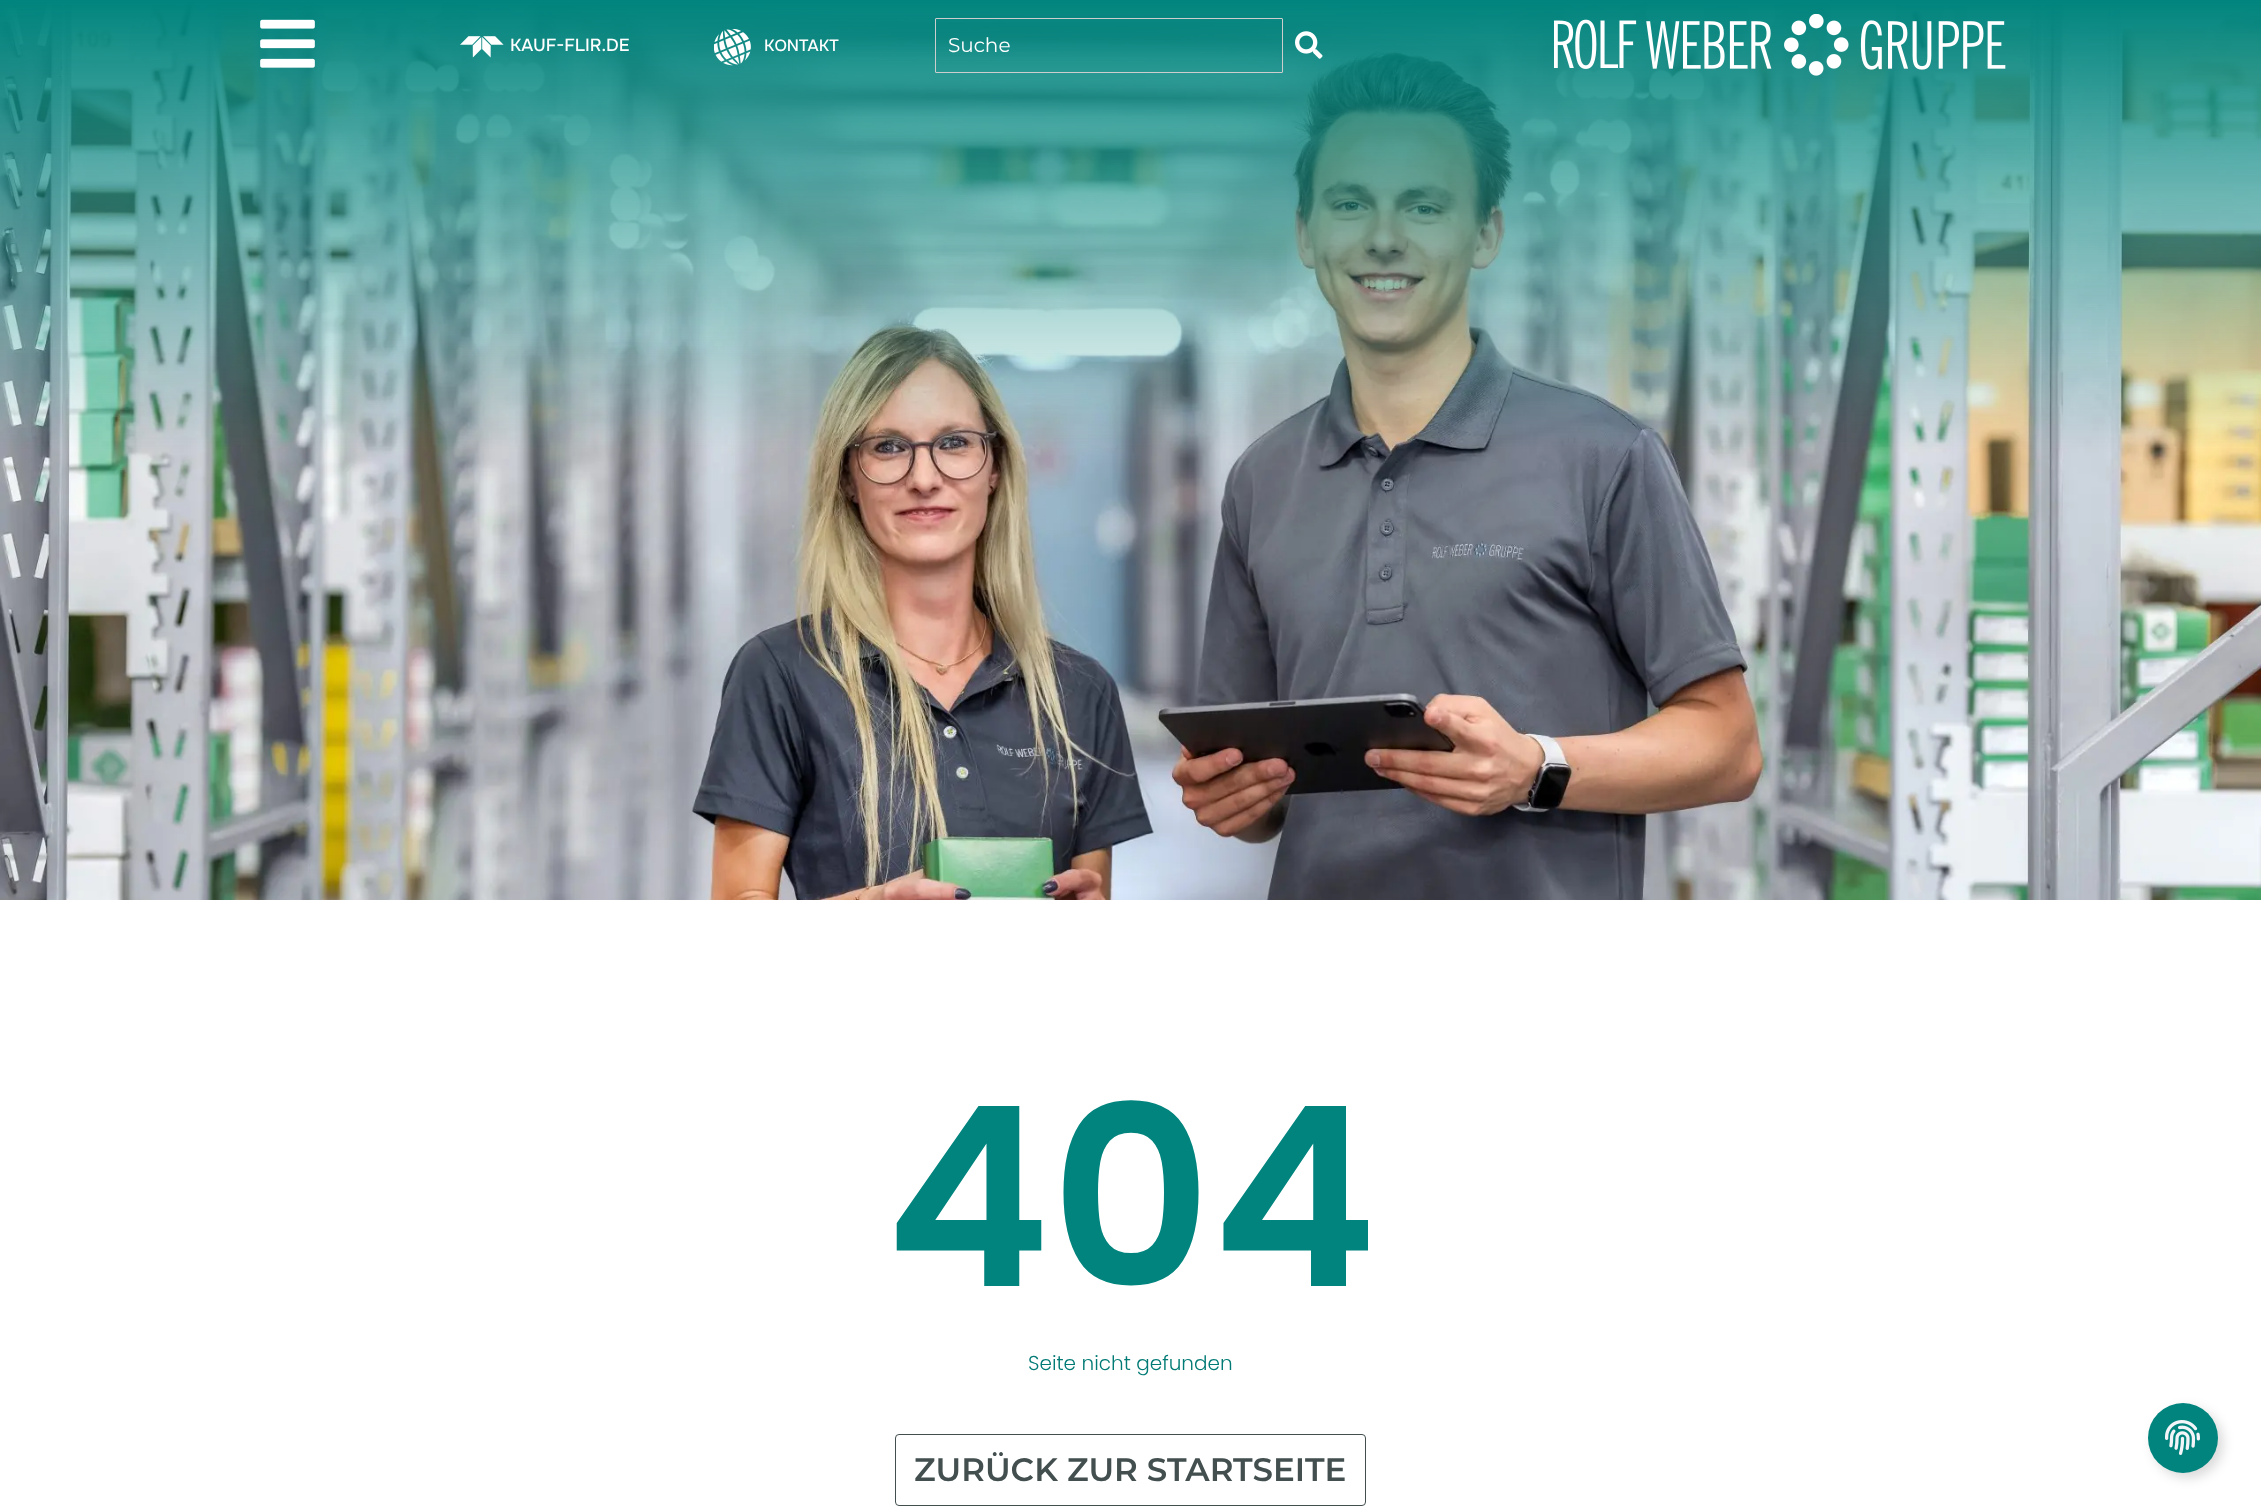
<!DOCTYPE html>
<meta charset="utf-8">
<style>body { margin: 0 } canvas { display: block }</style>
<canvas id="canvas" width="2261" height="1510"></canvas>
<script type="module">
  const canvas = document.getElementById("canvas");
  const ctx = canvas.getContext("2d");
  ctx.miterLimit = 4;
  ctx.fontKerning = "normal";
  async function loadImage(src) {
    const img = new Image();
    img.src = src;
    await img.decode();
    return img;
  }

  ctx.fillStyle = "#ffffff";
  ctx.fillRect(0, 0, 2261, 1510);
  ctx.drawImage(await loadImage("img1.png"), 0, 0, 2261, 900);
  ctx.drawImage(await loadImage("img2.png"), 260, 19, 55, 49);
  ctx.drawImage(await loadImage("img3.png"), 460, 36, 44, 22);
  ctx.font = "500 17.5px Onest";
  ctx.fillText("KAUF-FLIR.DE", 510, 51);
  ctx.drawImage(await loadImage("img4.png"), 714, 29, 37, 37);
  ctx.font = "500 16.25px Onest";
  ctx.fillText("KONTAKT", 764, 51);
  ctx.beginPath();
  ctx.roundRect(935.5, 18.5, 347, 54, 0.5);
  ctx.strokeStyle = "#cdcdcd";
  ctx.stroke();
  ctx.font = "20px Montserrat";
  ctx.fillText("Suche", 948, 52);
  ctx.drawImage(await loadImage("img5.png"), 1295, 31, 28, 28);
  ctx.drawImage(await loadImage("img6.png"), 1554, 14, 452, 62);
  ctx.font = "600 250px Poppins";
  ctx.fillStyle = "#00847d";
  ctx.fillText("404", 885, 1286);
  ctx.font = "300 20px Poppins";
  ctx.fillStyle = "#007a74";
  ctx.fillText("Seite nicht gefunden", 1028, 1370);
  ctx.beginPath();
  ctx.roundRect(895.5, 1434.5, 470, 71, 3.5);
  ctx.strokeStyle = "#434f4f";
  ctx.stroke();
  ctx.font = "600 32.5px Montserrat";
  ctx.fillStyle = "#434f4f";
  ctx.fillText("ZURÜCK ZUR STARTSEITE", 914, 1481);
  ctx.fillStyle = "rgba(0, 0, 0, 0.15)";
  ctx.filter = "blur(6px)";
  ctx.beginPath();
  ctx.roundRect(2153, 1408, 70, 70, 35);
  ctx.fill();
  ctx.filter = "none";
  ctx.fillStyle = "#00847d";
  ctx.beginPath();
  ctx.arc(2183, 1438, 35, 0, Math.PI * 2);
  ctx.fill();
  ctx.drawImage(await loadImage("img7.png"), 2165, 1420, 35, 35);
</script>
